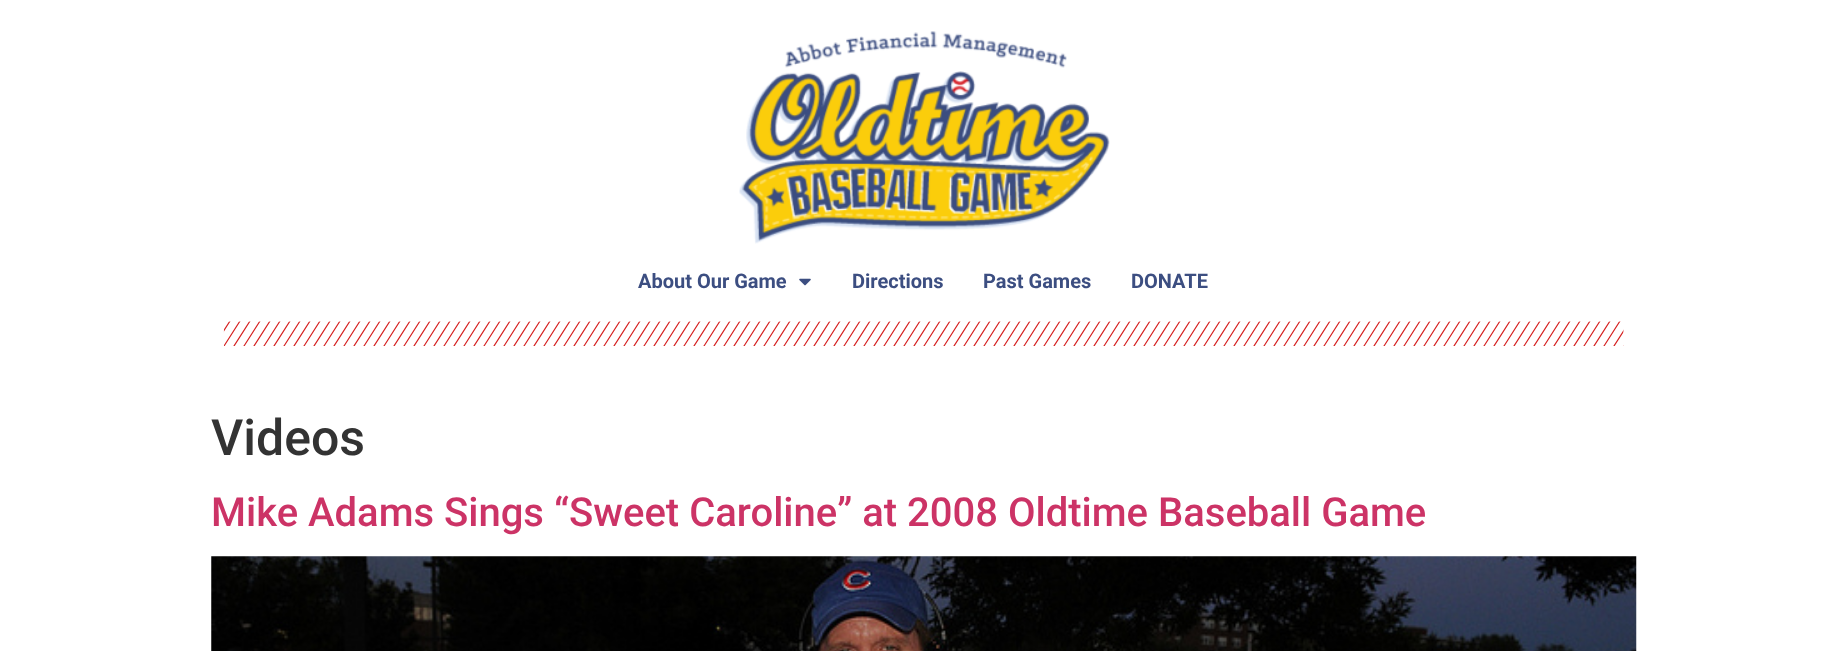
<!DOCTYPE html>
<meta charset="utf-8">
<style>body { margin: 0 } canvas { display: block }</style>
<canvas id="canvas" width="1846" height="651"></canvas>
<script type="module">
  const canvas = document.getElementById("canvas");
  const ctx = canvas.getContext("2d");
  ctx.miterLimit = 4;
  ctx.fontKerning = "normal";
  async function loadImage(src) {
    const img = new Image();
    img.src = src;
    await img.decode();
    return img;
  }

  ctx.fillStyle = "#ffffff";
  ctx.fillRect(0, 0, 1846, 651);
  ctx.drawImage(await loadImage("img1.png"), 739, 31, 371, 213);
  ctx.font = "bold 20px Roboto";
  ctx.fillStyle = "#3c4e81";
  ctx.fillText("About Our Game", 638, 288);
  ctx.drawImage(await loadImage("img2.png"), 799, 278, 12, 8);
  ctx.fillText("Directions", 852, 288);
  ctx.fillText("Past Games", 983, 288);
  ctx.fillText("DONATE", 1131, 288);
  ctx.drawImage(await loadImage("img3.png"), 223, 321, 1401, 25);
  ctx.font = "500 50px Roboto";
  ctx.fillStyle = "#333333";
  ctx.fillText("Videos", 211, 455);
  ctx.font = "500 40px Roboto";
  ctx.fillStyle = "#cc3366";
  ctx.fillText("Mike Adams Sings “Sweet Caroline” at 2008 Oldtime Baseball Game", 211, 526);
  ctx.drawImage(await loadImage("img4.png"), 211, 556, 1426, 95);
</script>
